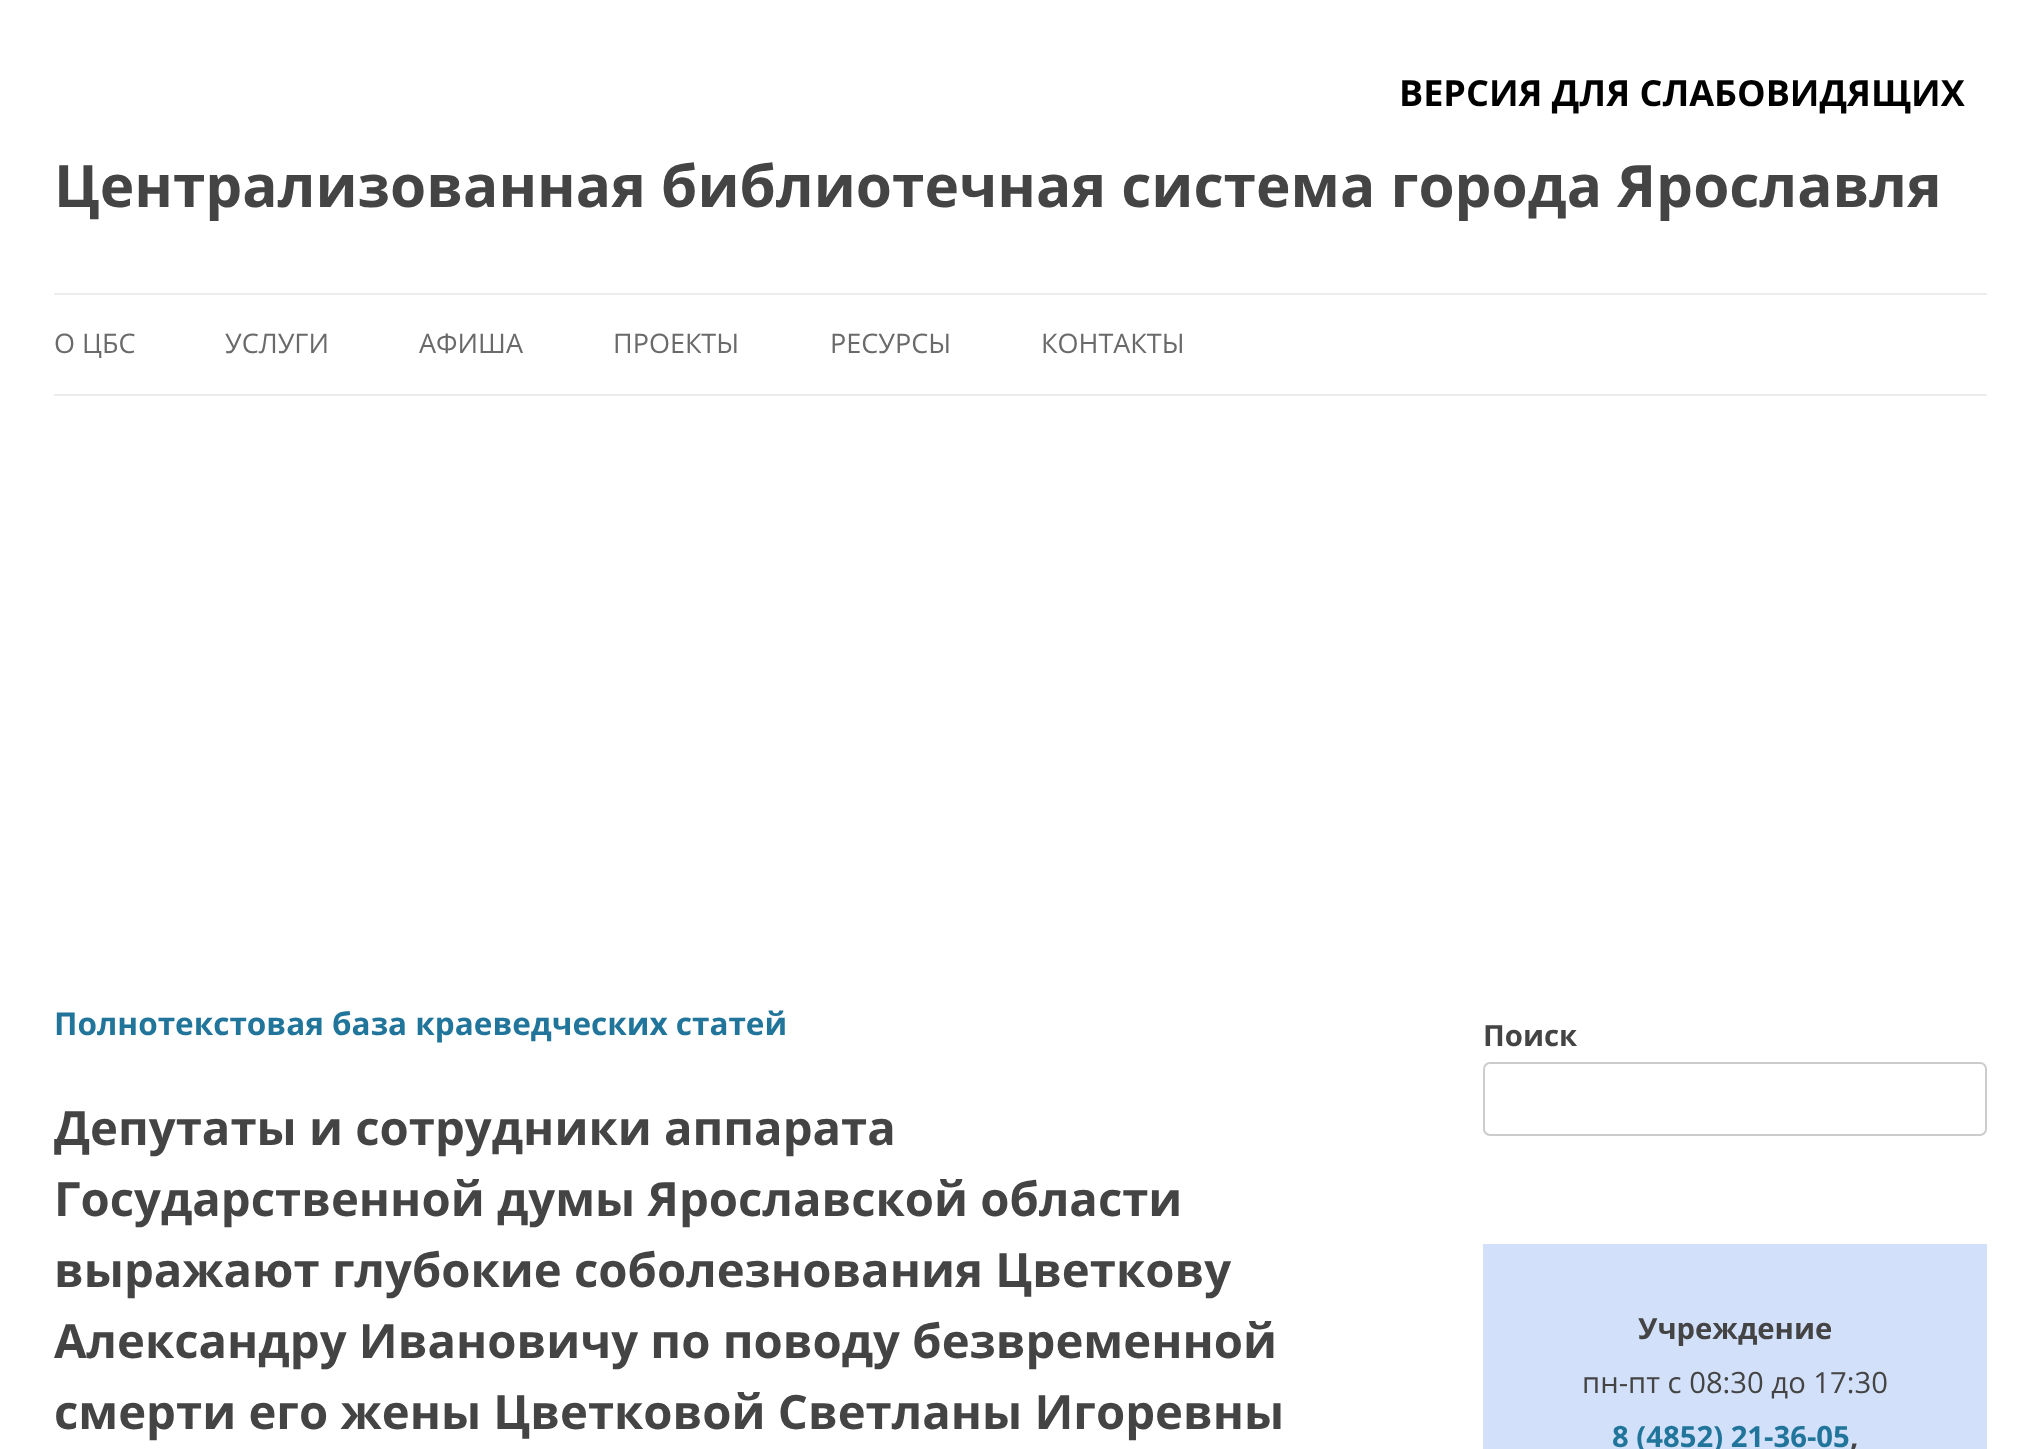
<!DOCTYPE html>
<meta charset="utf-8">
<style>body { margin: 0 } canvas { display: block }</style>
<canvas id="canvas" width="2039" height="1449"></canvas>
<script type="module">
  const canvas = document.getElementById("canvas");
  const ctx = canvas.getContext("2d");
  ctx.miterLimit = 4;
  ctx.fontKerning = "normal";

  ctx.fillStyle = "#ffffff";
  ctx.fillRect(0, 0, 2039, 1449);
  ctx.font = "bold 36px Open Sans";
  ctx.fillStyle = "#000000";
  ctx.fillText("ВЕРСИЯ ДЛЯ СЛАБОВИДЯЩИХ", 1399, 106);
  ctx.font = "bold 58.5px Open Sans";
  ctx.fillStyle = "#444444";
  ctx.fillText("Централизованная библиотечная система города Ярославля", 54, 207);
  ctx.fillStyle = "#ededed";
  ctx.fillRect(54, 293, 1933, 2);
  ctx.fillRect(54, 394, 1933, 2);
  ctx.font = "27px Open Sans";
  ctx.fillStyle = "#6a6a6a";
  ctx.fillText("О ЦБС", 54, 353);
  ctx.fillText("УСЛУГИ", 225, 353);
  ctx.fillText("АФИША", 419, 353);
  ctx.fillText("ПРОЕКТЫ", 613, 353);
  ctx.fillText("РЕСУРСЫ", 830, 353);
  ctx.fillText("КОНТАКТЫ", 1041, 353);
  ctx.font = "bold 31.5px Open Sans";
  ctx.fillStyle = "#21759b";
  ctx.fillText("Полнотекстовая база краеведческих статей", 54, 1035);
  ctx.font = "bold 47.25px Open Sans";
  ctx.fillStyle = "#444444";
  ctx.fillText("Депутаты и сотрудники аппарата", 54, 1145);
  ctx.fillText("Государственной думы Ярославской области", 54, 1216);
  ctx.fillText("выражают глубокие соболезнования Цветкову", 54, 1287);
  ctx.fillText("Александру Ивановичу по поводу безвременной", 54, 1358);
  ctx.fillText("смерти его жены Цветковой Светланы Игоревны", 54, 1429);
  ctx.font = "bold 29.25px Open Sans";
  ctx.fillText("Поиск", 1483, 1046);
  ctx.beginPath();
  ctx.roundRect(1484, 1063, 502, 72, 6);
  ctx.strokeStyle = "#cccccc";
  ctx.lineWidth = 2;
  ctx.stroke();
  ctx.fillStyle = "#d2e0f9";
  ctx.fillRect(1483, 1244, 504, 205);
  ctx.fillStyle = "#444444";
  ctx.fillText("Учреждение", 1638, 1339);
  ctx.font = "29.25px Open Sans";
  ctx.fillText("пн-пт с 08:30 до 17:30", 1582, 1393);
  ctx.font = "bold 29.25px Open Sans";
  ctx.fillStyle = "#21759b";
  ctx.fillText("8 (4852) 21-36-05", 1612, 1447);
  ctx.fillStyle = "#444444";
  ctx.fillText(",", 1850, 1447);
</script>
